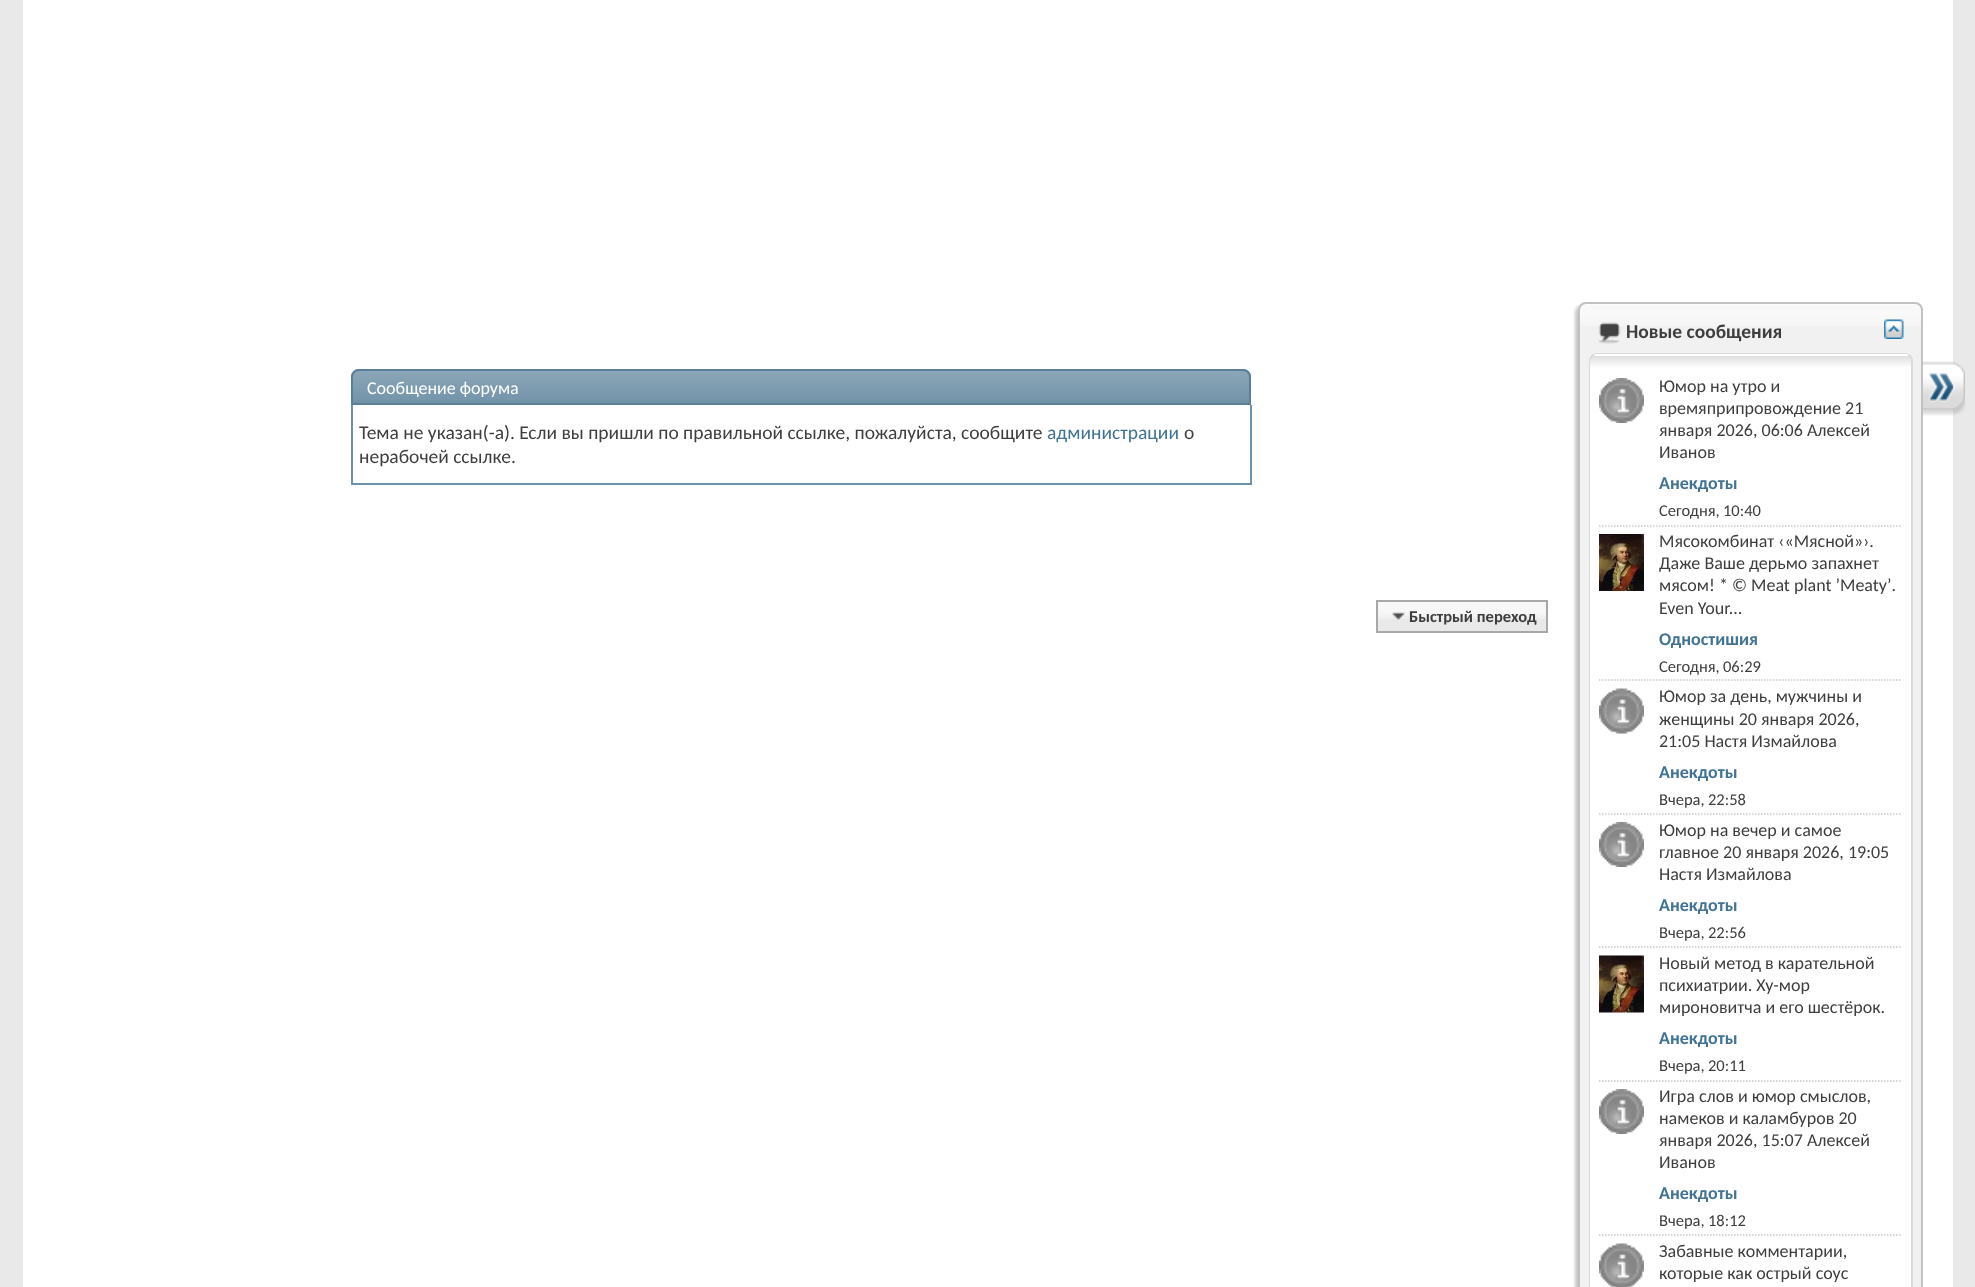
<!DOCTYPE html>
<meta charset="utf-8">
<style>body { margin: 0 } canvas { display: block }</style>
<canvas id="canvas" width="1975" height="1287"></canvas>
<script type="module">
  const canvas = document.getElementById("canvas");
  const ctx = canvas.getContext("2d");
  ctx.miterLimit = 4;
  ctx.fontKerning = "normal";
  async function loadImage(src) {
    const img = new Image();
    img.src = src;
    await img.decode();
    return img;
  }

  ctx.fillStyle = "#e9e9e9";
  ctx.fillRect(0, 0, 1975, 1287);
  ctx.fillStyle = "#ffffff";
  ctx.fillRect(23, 0, 1930, 1287);
  ctx.fillStyle = "#7192a8";
  ctx.beginPath();
  ctx.roundRect(351, 369, 900, 36, [8, 8, 0, 0]);
  ctx.fill();
  ctx.drawImage(await loadImage("img1.png"), 351, 370, 900, 30);
  ctx.beginPath();
  ctx.roundRect(352, 370, 898, 34, [7, 7, 0, 0]);
  ctx.strokeStyle = "#5a7f97";
  ctx.lineWidth = 2;
  ctx.stroke();
  ctx.font = "18px Carlito";
  ctx.fillStyle = "#ffffff";
  ctx.fillText("Сообщение форума", 367, 394);
  ctx.fillStyle = "#6b91ab";
  ctx.fillRect(1250, 405, 2, 80);
  ctx.fillRect(351, 483, 900, 2);
  ctx.fillRect(351, 405, 2, 80);
  ctx.font = "19.5px Carlito";
  ctx.fillStyle = "#3e3e3e";
  ctx.fillText("Тема не указан(-а). Если вы пришли по правильной ссылке, пожалуйста, сообщите", 359, 439);
  ctx.fillStyle = "#417394";
  ctx.fillText("администрации", 1047, 439);
  ctx.fillStyle = "#3e3e3e";
  ctx.fillText("о", 1184, 439);
  ctx.fillText("нерабочей ссылке.", 359, 463);
  ctx.fillStyle = "#e9e9e9";
  ctx.fillRect(1378, 602, 168, 29);
  ctx.drawImage(await loadImage("img2.png"), 1378, 602, 168, 17);
  ctx.strokeStyle = "#a8a8a8";
  ctx.strokeRect(1377, 601, 170, 31);
  ctx.drawImage(await loadImage("img3.png"), 1391, 612, 15, 9);
  ctx.font = "bold 16.5px Carlito";
  ctx.fillStyle = "#3e3e3e";
  ctx.fillText("Быстрый переход", 1409, 622);
  ctx.drawImage(await loadImage("img13.png"), 1923, 361, 42, 55);
  ctx.fillStyle = "#c8c8c8";
  ctx.filter = "blur(1.5px)";
  ctx.beginPath();
  ctx.roundRect(1575, 305, 345, 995, 8);
  ctx.fill();
  ctx.filter = "none";
  ctx.fillStyle = "#f1f1f1";
  ctx.beginPath();
  ctx.roundRect(1578, 302, 345, 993, 8);
  ctx.fill();
  ctx.drawImage(await loadImage("img4.png"), 1578, 303, 345, 23);
  ctx.beginPath();
  ctx.roundRect(1579, 303, 343, 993, 7);
  ctx.strokeStyle = "#c1c1c1";
  ctx.stroke();
  ctx.drawImage(await loadImage("img5.png"), 1598, 322, 23, 22);
  ctx.font = "bold 19.5px Carlito";
  ctx.fillStyle = "#3e3e3e";
  ctx.fillText("Новые сообщения", 1626, 338);
  ctx.drawImage(await loadImage("img6.png"), 1884, 319, 20, 20);
  ctx.fillStyle = "#ffffff";
  ctx.beginPath();
  ctx.roundRect(1590, 354, 322, 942, 7);
  ctx.fill();
  ctx.strokeStyle = "#dadada";
  ctx.stroke();
  ctx.beginPath();
  ctx.roundRect(1590, 354, 321, 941, 8);
  ctx.fill();
  ctx.drawImage(await loadImage("img7.png"), 1590, 355, 321, 12);
  ctx.fillRect(1595, 354, 313, 2);
  ctx.drawImage(await loadImage("img8.png"), 1599, 378, 45, 45);
  ctx.font = "18px Carlito";
  ctx.fillStyle = "#3e3e3e";
  ctx.fillText("Юмор на утро и", 1659, 392);
  ctx.fillText("времяприпровождение 21", 1659, 414);
  ctx.fillText("января 2026, 06:06 Алексей", 1659, 436);
  ctx.fillText("Иванов", 1659, 458);
  ctx.font = "bold 18px Carlito";
  ctx.fillStyle = "#417394";
  ctx.fillText("Анекдоты", 1659, 489);
  ctx.font = "16.5px Carlito";
  ctx.fillStyle = "#3e3e3e";
  ctx.fillText("Сегодня,", 1659, 516);
  ctx.fillText("10:40", 1723, 516);
  ctx.beginPath();
  ctx.moveTo(1599, 526);
  ctx.lineTo(1902, 526);
  ctx.strokeStyle = "#c9c9c9";
  ctx.lineWidth = 1.5;
  ctx.setLineDash([1.5, 1.5]);
  ctx.stroke();
  ctx.drawImage(await loadImage("img9.png"), 1599, 534, 45, 57);
  ctx.font = "18px Carlito";
  ctx.fillText("Мясокомбинат ‹«Мясной»›.", 1659, 547);
  ctx.fillText("Даже Ваше дерьмо запахнет", 1659, 569);
  ctx.fillText("мясом! * © Meat plant ʼMeatyʼ.", 1659, 591);
  ctx.fillText("Even Your...", 1659, 614);
  ctx.font = "bold 18px Carlito";
  ctx.fillStyle = "#417394";
  ctx.fillText("Одностишия", 1659, 645);
  ctx.font = "16.5px Carlito";
  ctx.fillStyle = "#3e3e3e";
  ctx.fillText("Сегодня,", 1659, 672);
  ctx.fillText("06:29", 1723, 672);
  ctx.beginPath();
  ctx.moveTo(1599, 680);
  ctx.lineTo(1902, 680);
  ctx.stroke();
  ctx.drawImage(await loadImage("img10.png"), 1599, 688, 45, 46);
  ctx.font = "18px Carlito";
  ctx.fillText("Юмор за день, мужчины и", 1659, 702);
  ctx.fillText("женщины 20 января 2026,", 1659, 725);
  ctx.fillText("21:05 Настя Измайлова", 1659, 747);
  ctx.font = "bold 18px Carlito";
  ctx.fillStyle = "#417394";
  ctx.fillText("Анекдоты", 1659, 778);
  ctx.font = "16.5px Carlito";
  ctx.fillStyle = "#3e3e3e";
  ctx.fillText("Вчера,", 1659, 805);
  ctx.fillText("22:58", 1708, 805);
  ctx.beginPath();
  ctx.moveTo(1599, 814);
  ctx.lineTo(1902, 814);
  ctx.stroke();
  ctx.drawImage(await loadImage("img8.png"), 1599, 822, 45, 45);
  ctx.font = "18px Carlito";
  ctx.fillText("Юмор на вечер и самое", 1659, 836);
  ctx.fillText("главное 20 января 2026, 19:05", 1659, 858);
  ctx.fillText("Настя Измайлова", 1659, 880);
  ctx.font = "bold 18px Carlito";
  ctx.fillStyle = "#417394";
  ctx.fillText("Анекдоты", 1659, 911);
  ctx.font = "16.5px Carlito";
  ctx.fillStyle = "#3e3e3e";
  ctx.fillText("Вчера,", 1659, 938);
  ctx.fillText("22:56", 1708, 938);
  ctx.beginPath();
  ctx.moveTo(1599, 947);
  ctx.lineTo(1902, 947);
  ctx.stroke();
  ctx.drawImage(await loadImage("img11.png"), 1599, 955, 45, 58);
  ctx.font = "18px Carlito";
  ctx.fillText("Новый метод в карательной", 1659, 969);
  ctx.fillText("психиатрии. Ху-мор", 1659, 991);
  ctx.fillText("мироновитча и его шестёрок.", 1659, 1013);
  ctx.font = "bold 18px Carlito";
  ctx.fillStyle = "#417394";
  ctx.fillText("Анекдоты", 1659, 1044);
  ctx.font = "16.5px Carlito";
  ctx.fillStyle = "#3e3e3e";
  ctx.fillText("Вчера,", 1659, 1071);
  ctx.fillText("20:11", 1708, 1071);
  ctx.beginPath();
  ctx.moveTo(1599, 1081);
  ctx.lineTo(1902, 1081);
  ctx.stroke();
  ctx.drawImage(await loadImage("img8.png"), 1599, 1089, 45, 45);
  ctx.font = "18px Carlito";
  ctx.fillText("Игра слов и юмор смыслов,", 1659, 1102);
  ctx.fillText("намеков и каламбуров 20", 1659, 1124);
  ctx.fillText("января 2026, 15:07 Алексей", 1659, 1146);
  ctx.fillText("Иванов", 1659, 1168);
  ctx.font = "bold 18px Carlito";
  ctx.fillStyle = "#417394";
  ctx.fillText("Анекдоты", 1659, 1199);
  ctx.font = "16.5px Carlito";
  ctx.fillStyle = "#3e3e3e";
  ctx.fillText("Вчера,", 1659, 1226);
  ctx.fillText("18:12", 1708, 1226);
  ctx.beginPath();
  ctx.moveTo(1599, 1235);
  ctx.lineTo(1902, 1235);
  ctx.stroke();
  ctx.drawImage(await loadImage("img12.png"), 1599, 1243, 45, 44);
  ctx.font = "18px Carlito";
  ctx.fillText("Забавные комментарии,", 1659, 1257);
  ctx.fillText("которые как острый соус", 1659, 1279);
</script>
